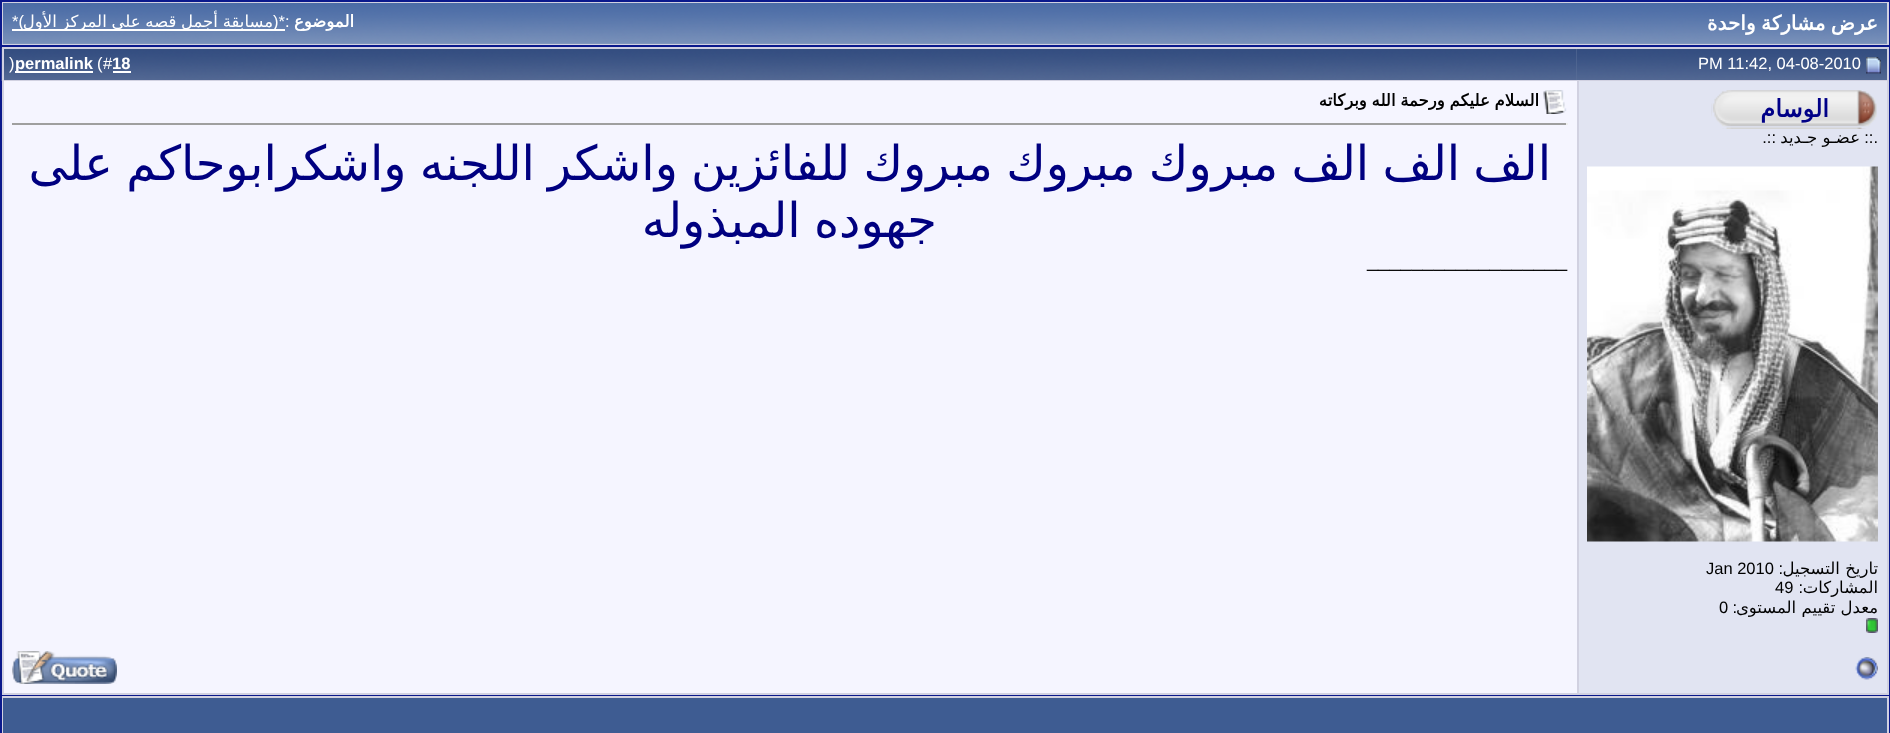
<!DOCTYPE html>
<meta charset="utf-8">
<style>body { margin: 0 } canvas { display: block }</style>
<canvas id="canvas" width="1890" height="733"></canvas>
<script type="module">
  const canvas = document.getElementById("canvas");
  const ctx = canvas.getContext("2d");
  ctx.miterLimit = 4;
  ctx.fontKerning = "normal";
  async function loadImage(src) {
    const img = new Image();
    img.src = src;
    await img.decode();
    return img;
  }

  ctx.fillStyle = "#d1d1e1";
  ctx.fillRect(0, 0, 1890, 733);
  ctx.fillStyle = "#0b198c";
  ctx.fillRect(0, 0, 1890, 2);
  ctx.fillRect(1889, 0, 1, 45);
  ctx.fillRect(0, 0, 2, 45);
  ctx.fillStyle = "#869bbf";
  ctx.fillRect(3, 43, 1884, 1);
  ctx.drawImage(await loadImage("img1.png"), 3, 3, 1884, 41);
  ctx.wordSpacing = "-1px";
  ctx.direction = "rtl";
  ctx.font = "bold 20px DejaVu Sans";
  ctx.fillStyle = "#ffffff";
  ctx.fillText("عرض مشاركة واحدة", 1878, 30);
  ctx.wordSpacing = "0px";
  ctx.font = "bold 16.5px DejaVu Sans";
  ctx.fillText("الموضوع", 354, 27);
  ctx.direction = "ltr";
  ctx.font = "16.5px Liberation Sans";
  ctx.fillText(":", 285, 27);
  ctx.fillRect(12, 29, 273, 2);
  ctx.wordSpacing = "-0.5px";
  ctx.direction = "rtl";
  ctx.font = "16.5px DejaVu Sans";
  ctx.fillText("مسابقة أجمل قصه على المركز الأول", 273, 27);
  ctx.wordSpacing = "0px";
  ctx.font = "16.5px Liberation Sans";
  ctx.fillText("*(", 285, 27);
  ctx.fillText(")*", 24, 27);
  ctx.strokeStyle = "#0b198c";
  ctx.lineWidth = 2;
  ctx.strokeRect(1, 46, 1888, 649);
  ctx.drawImage(await loadImage("img2.png"), 1577, 49, 310, 31);
  ctx.fillStyle = "#d1d1e1";
  ctx.fillRect(1888, 47, 1, 595);
  ctx.drawImage(await loadImage("img3.png"), 1866, 57, 15, 17);
  ctx.direction = "ltr";
  ctx.fillStyle = "#ffffff";
  ctx.fillText("PM 11:42, 04-08-2010", 1698, 69);
  ctx.fillStyle = "#5c7099";
  ctx.fillRect(1576, 49, 1, 31);
  ctx.drawImage(await loadImage("img4.png"), 1, 48, 1576, 33);
  ctx.fillStyle = "#d1d1e1";
  ctx.fillRect(2, 48, 1575, 1);
  ctx.fillRect(2, 80, 1575, 1);
  ctx.fillRect(2, 47, 2, 34);
  ctx.font = "bold 16.5px Liberation Sans";
  ctx.fillStyle = "#ffffff";
  ctx.fillText("18", 112, 69);
  ctx.fillRect(113, 71, 18, 2);
  ctx.font = "16.5px Liberation Sans";
  ctx.fillText("#", 103, 69);
  ctx.fillText("(", 97, 69);
  ctx.fillRect(15, 71, 78, 2);
  ctx.font = "bold 16.5px Liberation Sans";
  ctx.fillText("permalink", 15, 69);
  ctx.font = "16.5px Liberation Sans";
  ctx.fillText(")", 9, 69);
  ctx.fillStyle = "#e1e4f2";
  ctx.fillRect(1579, 81, 308, 612);
  ctx.drawImage(await loadImage("img5.png"), 1711, 90, 166, 39);
  ctx.direction = "rtl";
  ctx.font = "bold 24px DejaVu Sans";
  ctx.fillStyle = "#000087";
  ctx.fillText("الوسام", 1829, 117);
  ctx.font = "16.5px Liberation Sans";
  ctx.fillStyle = "#000000";
  ctx.fillText(".::", 1878, 143);
  ctx.font = "16.5px DejaVu Sans";
  ctx.fillText("عضـو جـديد", 1860, 143);
  ctx.font = "16.5px Liberation Sans";
  ctx.fillText("::.", 1776, 143);
  ctx.drawImage(await loadImage("img6.png"), 1587, 166, 291, 376);
  ctx.font = "16.5px DejaVu Sans";
  ctx.fillText("تاريخ التسجيل", 1878, 574);
  ctx.font = "16.5px Liberation Sans";
  ctx.fillText(":", 1783, 574);
  ctx.direction = "ltr";
  ctx.fillText("Jan 2010", 1706, 574);
  ctx.direction = "rtl";
  ctx.font = "16.5px DejaVu Sans";
  ctx.fillText("المشاركات", 1878, 593);
  ctx.font = "16.5px Liberation Sans";
  ctx.fillText(":", 1803, 593);
  ctx.direction = "ltr";
  ctx.fillText("49", 1775, 593);
  ctx.direction = "rtl";
  ctx.font = "16.5px DejaVu Sans";
  ctx.fillText("معدل تقييم المستوى", 1878, 613);
  ctx.font = "16.5px Liberation Sans";
  ctx.fillText(":", 1737, 613);
  ctx.direction = "ltr";
  ctx.fillText("0", 1719, 613);
  ctx.drawImage(await loadImage("img7.png"), 1866, 618, 12, 15);
  ctx.fillStyle = "#f5f5ff";
  ctx.fillRect(4, 81, 1573, 612);
  ctx.drawImage(await loadImage("img8.png"), 1543, 90, 24, 24);
  ctx.wordSpacing = "-0.5px";
  ctx.direction = "rtl";
  ctx.font = "bold 16.5px DejaVu Sans";
  ctx.fillStyle = "#000000";
  ctx.fillText("السلام عليكم ورحمة الله وبركاته", 1539, 106);
  ctx.fillStyle = "#9f9f9f";
  ctx.fillRect(12, 123, 1556, 2);
  ctx.fillStyle = "#eeeeee";
  ctx.fillRect(1566, 123, 2, 2);
  ctx.wordSpacing = "-2px";
  ctx.font = "48px DejaVu Sans";
  ctx.fillStyle = "#000080";
  ctx.fillText("الف الف الف مبروك مبروك مبروك للفائزين واشكر اللجنه واشكرابوحاكم على", 1551, 180);
  ctx.fillText("جهوده المبذوله", 937, 237);
  ctx.wordSpacing = "0px";
  ctx.direction = "ltr";
  ctx.font = "20px Liberation Sans";
  ctx.fillStyle = "#000000";
  ctx.fillText("__________________", 1367, 267);
  ctx.fillStyle = "#d1d1e1";
  ctx.fillRect(1887, 642, 2, 53);
  ctx.fillRect(2, 694, 1887, 1);
  ctx.drawImage(await loadImage("img9.png"), 1855, 657, 23, 23);
  ctx.drawImage(await loadImage("img10.png"), 12, 651, 105, 33);
  ctx.fillStyle = "#0b198c";
  ctx.fillRect(1889, 696, 1, 37);
  ctx.fillRect(0, 696, 2, 37);
  ctx.fillStyle = "#3e5c92";
  ctx.fillRect(3, 698, 1884, 35);
</script>
